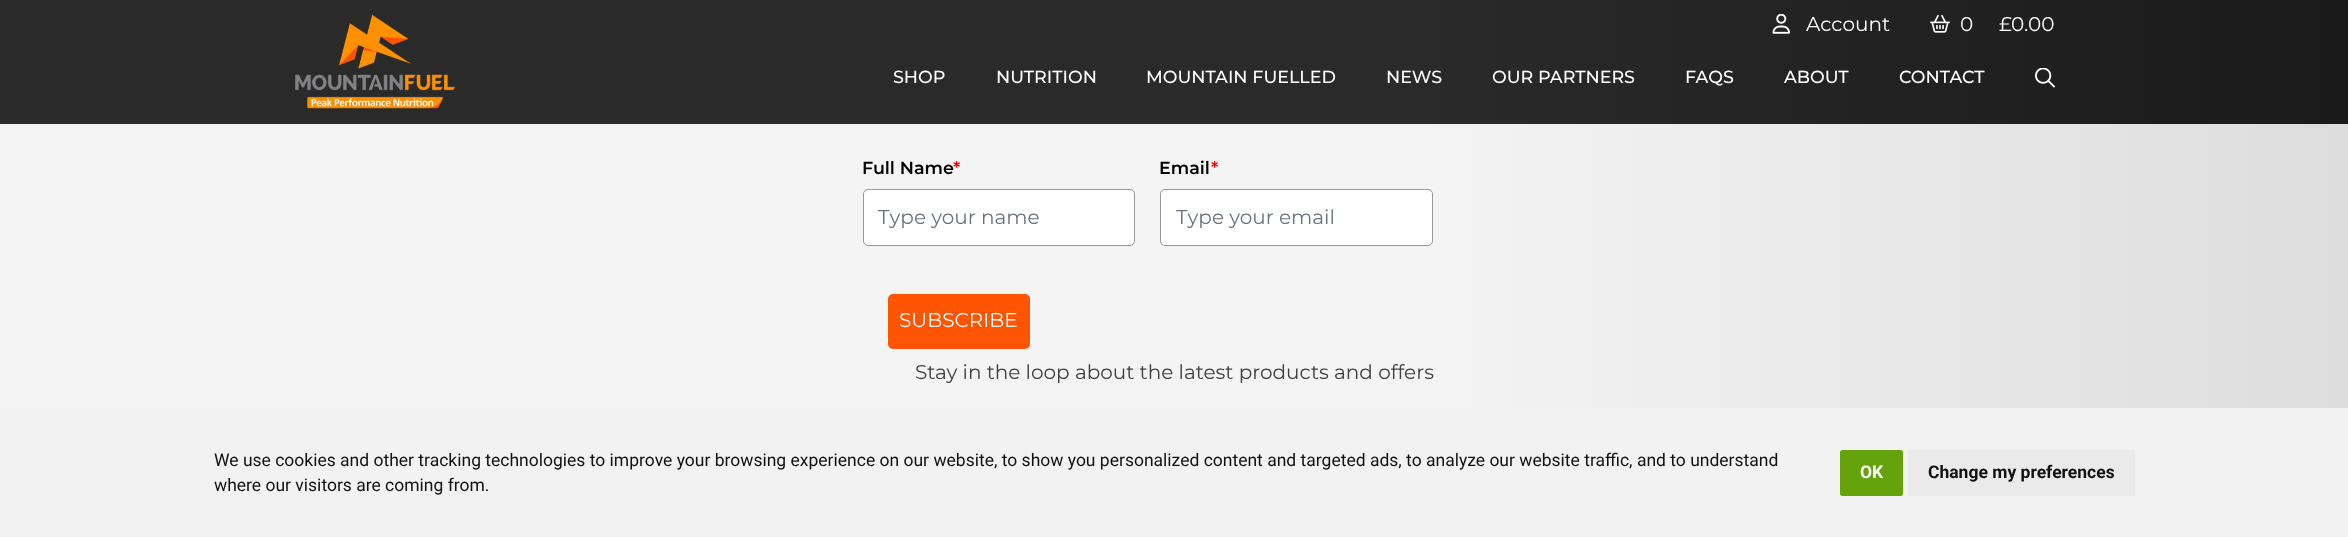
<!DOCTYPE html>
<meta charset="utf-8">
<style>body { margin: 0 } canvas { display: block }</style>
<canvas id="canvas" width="2348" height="537"></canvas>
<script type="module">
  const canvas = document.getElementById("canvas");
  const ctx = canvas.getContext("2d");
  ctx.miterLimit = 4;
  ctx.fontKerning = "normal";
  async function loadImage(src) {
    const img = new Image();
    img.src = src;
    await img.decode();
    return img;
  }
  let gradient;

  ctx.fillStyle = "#ffffff";
  ctx.fillRect(0, 0, 2348, 537);
  gradient = ctx.createLinearGradient(0, 62, 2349, 62);
  gradient.addColorStop(0.6, "#2a2a2a");
  gradient.addColorStop(1, "#1a1a1a");
  ctx.fillStyle = gradient;
  ctx.fillRect(0, 0, 2348, 124);
  ctx.drawImage(await loadImage("img1.png"), 1772, 14, 18, 20);
  ctx.font = "100 20px Montserrat";
  ctx.fillStyle = "#ffffff";
  ctx.fillText("Account", 1806, 31);
  ctx.drawImage(await loadImage("img2.png"), 1930, 14, 20, 19);
  ctx.fillText("0", 1960, 31);
  ctx.fillText("£0.00", 1999, 31);
  ctx.drawImage(await loadImage("img3.png"), 295, 14, 160, 95);
  ctx.font = "500 17.5px Montserrat";
  ctx.fillText("SHOP", 893, 83);
  ctx.fillText("NUTRITION", 996, 83);
  ctx.fillText("MOUNTAIN FUELLED", 1146, 83);
  ctx.fillText("NEWS", 1386, 83);
  ctx.fillText("OUR PARTNERS", 1492, 83);
  ctx.fillText("FAQS", 1685, 83);
  ctx.fillText("ABOUT", 1784, 83);
  ctx.fillText("CONTACT", 1899, 83);
  ctx.drawImage(await loadImage("img4.png"), 2035, 68, 20, 20);
  gradient = ctx.createLinearGradient(0, 226, 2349, 226);
  gradient.addColorStop(0.6, "#f4f4f4");
  gradient.addColorStop(1, "#dddddd");
  ctx.fillStyle = gradient;
  ctx.fillRect(0, 124, 2348, 284);
  ctx.font = "600 17.5px Montserrat";
  ctx.fillStyle = "#000000";
  ctx.fillText("Full Name", 862, 174);
  ctx.fillStyle = "#ff0000";
  ctx.fillText("*", 953, 174);
  ctx.fillStyle = "#ffffff";
  ctx.beginPath();
  ctx.roundRect(863.5, 189.5, 271, 56, 4.5);
  ctx.fill();
  ctx.strokeStyle = "#979797";
  ctx.stroke();
  ctx.font = "100 20px Montserrat";
  ctx.fillStyle = "#6b7280";
  ctx.fillText("Type your name", 878, 224);
  ctx.font = "600 17.5px Montserrat";
  ctx.fillStyle = "#000000";
  ctx.fillText("Email", 1159, 174);
  ctx.fillStyle = "#ff0000";
  ctx.fillText("*", 1211, 174);
  ctx.fillStyle = "#ffffff";
  ctx.beginPath();
  ctx.roundRect(1160.5, 189.5, 272, 56, 4.5);
  ctx.fill();
  ctx.stroke();
  ctx.font = "100 20px Montserrat";
  ctx.fillStyle = "#6b7280";
  ctx.fillText("Type your email", 1176, 224);
  ctx.fillStyle = "#ff5401";
  ctx.beginPath();
  ctx.roundRect(888, 294, 142, 55, 5);
  ctx.fill();
  ctx.fillStyle = "#ffffff";
  ctx.fillText("SUBSCRIBE", 899, 327);
  ctx.fillStyle = "#404040";
  ctx.fillText("Stay in the loop about the latest products and offers", 915, 379);
  ctx.fillStyle = "#f2f2f2";
  ctx.fillRect(0, 408, 2348, 129);
  ctx.font = "17.5px Roboto";
  ctx.fillStyle = "#111111";
  ctx.fillText("We use cookies and other tracking technologies to improve your browsing experience on our website, to show you personalized content and targeted ads, to analyze our website traffic, and to understand", 214, 466);
  ctx.fillText("where our visitors are coming from.", 214, 491);
  ctx.fillStyle = "#65a30d";
  ctx.beginPath();
  ctx.roundRect(1840, 450, 63, 46, 2.5);
  ctx.fill();
  ctx.font = "bold 17.5px Roboto";
  ctx.fillStyle = "#ffffff";
  ctx.fillText("OK", 1860, 478);
  ctx.fillStyle = "#eaeaea";
  ctx.beginPath();
  ctx.roundRect(1908, 450, 227, 46, 2.5);
  ctx.fill();
  ctx.fillStyle = "#111111";
  ctx.fillText("Change my preferences", 1928, 478);
</script>
